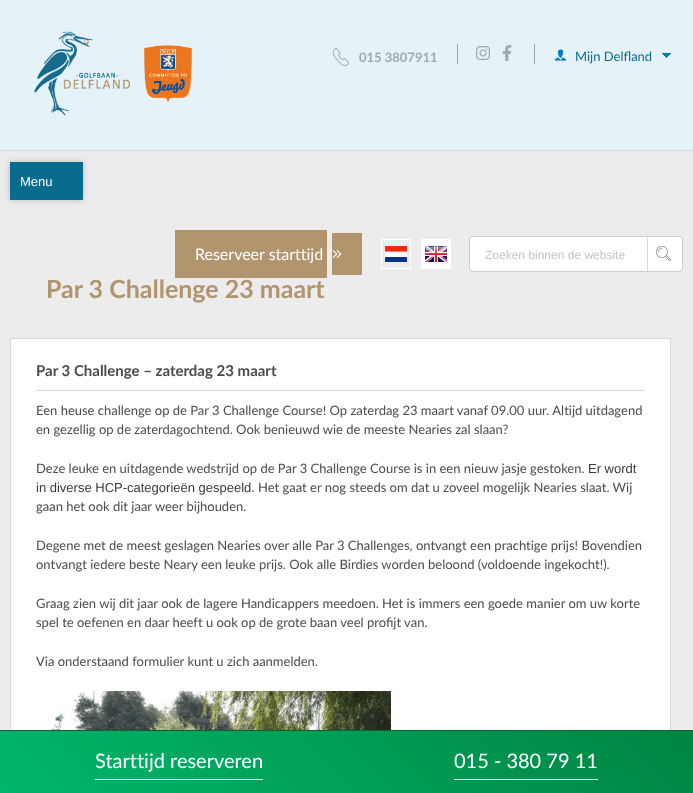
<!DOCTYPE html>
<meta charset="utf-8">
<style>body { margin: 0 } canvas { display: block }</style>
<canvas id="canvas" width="693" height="793"></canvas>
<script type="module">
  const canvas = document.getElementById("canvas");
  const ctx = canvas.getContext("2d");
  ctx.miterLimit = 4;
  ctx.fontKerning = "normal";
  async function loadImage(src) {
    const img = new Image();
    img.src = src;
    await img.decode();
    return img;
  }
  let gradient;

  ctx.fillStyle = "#ececec";
  ctx.fillRect(0, 0, 693, 793);
  ctx.fillStyle = "#e5f2f8";
  ctx.fillRect(0, 0, 693, 150);
  ctx.fillStyle = "#ced9df";
  ctx.fillRect(0, 150, 693, 1);
  ctx.fillStyle = "rgba(33, 30, 30, 0.25)";
  ctx.filter = "blur(3px)";
  ctx.beginPath();
  ctx.rect(10, 162, 73, 38);
  ctx.fill();
  ctx.filter = "none";
  ctx.fillStyle = "#096b8e";
  ctx.fillRect(10, 162, 73, 38);
  ctx.font = "13px Liberation Sans";
  ctx.fillStyle = "#ffffff";
  ctx.fillText("Menu", 20, 186);
  ctx.drawImage(await loadImage("img1.png"), 34, 31, 96, 85);
  ctx.drawImage(await loadImage("img2.png"), 144, 45, 48, 57);
  ctx.fillStyle = "#9faaaf";
  ctx.fillRect(457, 44, 1, 20);
  ctx.drawImage(await loadImage("img3.png"), 332, 48, 17, 18);
  ctx.font = "bold 13px Lato";
  ctx.fillText("015 3807911", 359, 62);
  ctx.fillRect(534, 44, 1, 20);
  ctx.drawImage(await loadImage("img4.png"), 476, 46, 14, 14);
  ctx.drawImage(await loadImage("img5.png"), 502, 45, 10, 16);
  ctx.drawImage(await loadImage("img6.png"), 554, 49, 13, 12);
  ctx.font = "13px Lato";
  ctx.fillStyle = "#096b8e";
  ctx.fillText("Mijn Delfland", 575, 61);
  ctx.drawImage(await loadImage("img7.png"), 662, 53, 9, 5);
  ctx.fillStyle = "#b1956f";
  ctx.fillRect(175, 230, 152, 48);
  ctx.fillRect(332, 233, 30, 42);
  ctx.font = "16px Lato";
  ctx.fillStyle = "#ffffff";
  ctx.fillText("Reserveer starttijd", 195, 260);
  ctx.drawImage(await loadImage("img8.png"), 332, 250, 10, 8);
  ctx.strokeStyle = "#ffffff";
  ctx.strokeRect(381.5, 239.5, 29, 29);
  ctx.drawImage(await loadImage("img9.png"), 385, 246, 22, 16);
  ctx.fillRect(421, 239, 30, 30);
  ctx.drawImage(await loadImage("img10.png"), 425, 246, 22, 16);
  ctx.beginPath();
  ctx.roundRect(469.5, 236.5, 213, 35, 2.5);
  ctx.fill();
  ctx.strokeStyle = "#cdcdcd";
  ctx.stroke();
  ctx.font = "12px Liberation Sans";
  ctx.fillStyle = "#c4c4c4";
  ctx.fillText("Zoeken binnen de website", 485, 259);
  ctx.drawImage(await loadImage("img11.png"), 656, 246, 15, 15);
  ctx.fillStyle = "#dad9d9";
  ctx.fillRect(647, 237, 1, 34);
  ctx.font = "bold 25px Lato";
  ctx.fillStyle = "#b1956f";
  ctx.fillText("Par 3 Challenge 23 maart", 46, 298);
  ctx.fillStyle = "#ffffff";
  ctx.fillRect(11, 339, 659, 391);
  ctx.strokeStyle = "#dad9d9";
  ctx.strokeRect(10.5, 338.5, 660, 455);
  ctx.fillStyle = "#dad9d9";
  ctx.fillRect(36, 390, 609, 1);
  ctx.font = "bold 15px Lato";
  ctx.fillStyle = "#4b4b4b";
  ctx.fillText("Par 3 Challenge – zaterdag 23 maart", 36, 376);
  ctx.font = "13px Lato";
  ctx.fillText("Een heuse challenge op de Par 3 Challenge Course! Op zaterdag 23 maart vanaf 09.00 uur. Altijd uitdagend", 36, 415);
  ctx.fillText("en gezellig op de zaterdagochtend. Ook benieuwd wie de meeste Nearies zal slaan?", 36, 434);
  ctx.fillText("Deze leuke en uitdagende wedstrijd op de Par 3 Challenge Course is in een nieuw jasje gestoken.", 36, 473);
  ctx.font = "13px Liberation Sans";
  ctx.fillStyle = "#3a3a3a";
  ctx.fillText("Er wordt", 588, 473);
  ctx.fillText("in diverse HCP-categorieën gespeeld.", 36, 492);
  ctx.font = "13px Lato";
  ctx.fillStyle = "#4b4b4b";
  ctx.fillText("Het gaat er nog steeds om dat u zoveel mogelijk Nearies slaat. Wij", 258, 492);
  ctx.fillText("gaan het ook dit jaar weer bijhouden.", 36, 511);
  ctx.fillText("Degene met de meest geslagen Nearies over alle Par 3 Challenges, ontvangt een prachtige prijs! Bovendien", 36, 550);
  ctx.fillText("ontvangt iedere beste Neary een leuke prijs. Ook alle Birdies worden beloond (voldoende ingekocht!).", 36, 569);
  ctx.fillText("Graag zien wij dit jaar ook de lagere Handicappers meedoen. Het is immers een goede manier om uw korte", 36, 608);
  ctx.fillText("spel te oefenen en daar heeft u ook op de grote baan veel profijt van.", 36, 627);
  ctx.fillText("Via onderstaand formulier kunt u zich aanmelden.", 36, 666);
  ctx.drawImage(await loadImage("img12.png"), 36, 691, 355, 39);
  gradient = ctx.createLinearGradient(158, 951, 536, 573);
  gradient.addColorStop(0, "#00b76c");
  gradient.addColorStop(1, "#008441");
  ctx.fillStyle = gradient;
  ctx.fillRect(0, 731, 693, 62);
  ctx.fillStyle = "#036734";
  ctx.fillRect(0, 730, 693, 1);
  ctx.font = "20px Lato";
  ctx.fillStyle = "#ffffff";
  ctx.fillText("Starttijd reserveren", 95, 768);
  ctx.fillRect(95, 779, 168, 1);
  ctx.fillText("015 - 380 79 11", 454, 768);
  ctx.fillRect(454, 779, 144, 1);
</script>
